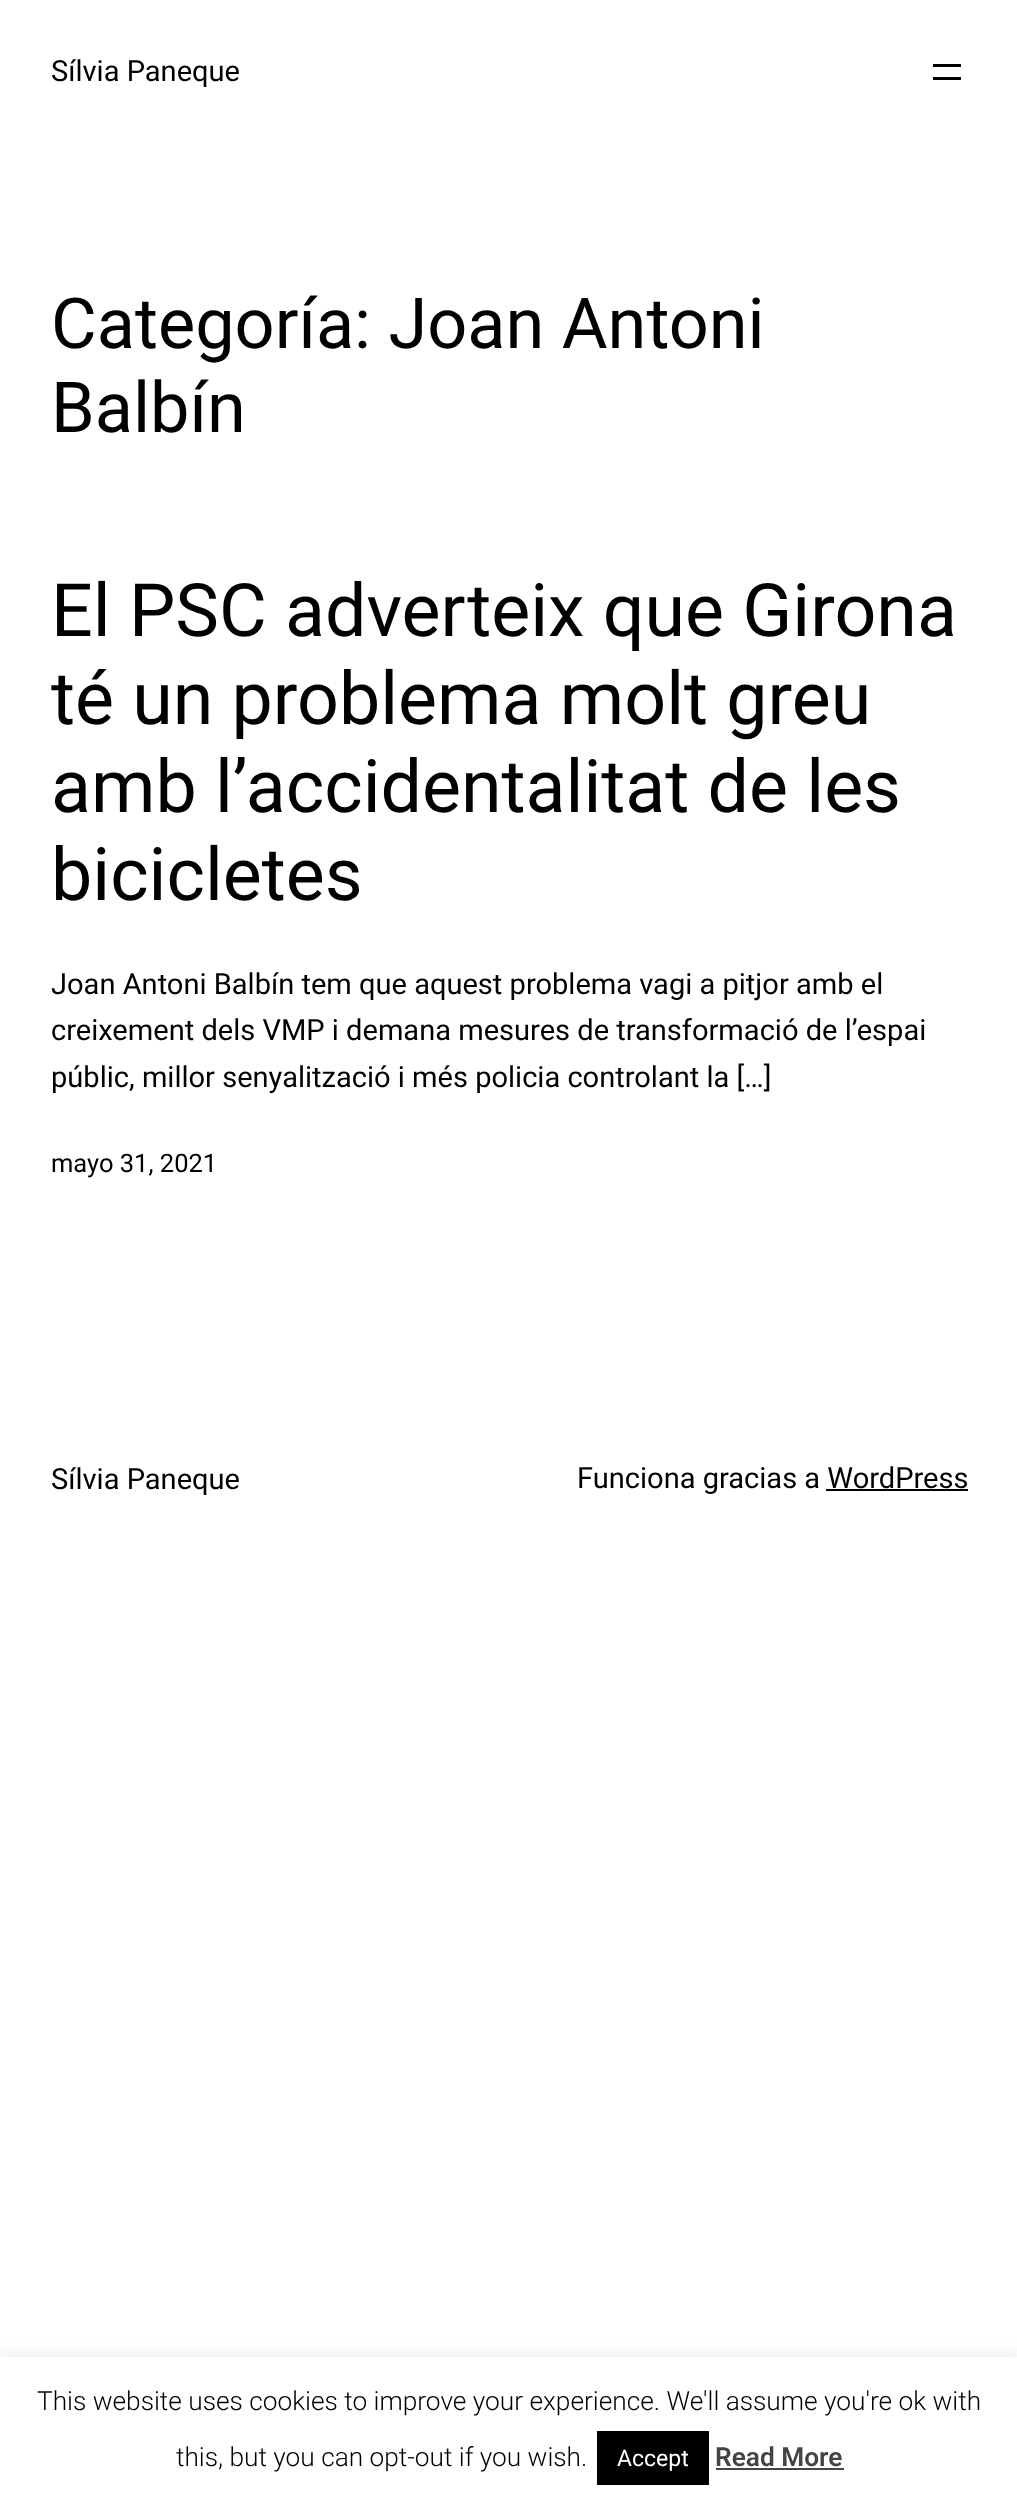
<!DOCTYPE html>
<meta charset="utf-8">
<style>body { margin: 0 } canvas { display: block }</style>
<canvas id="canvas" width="1017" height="2505"></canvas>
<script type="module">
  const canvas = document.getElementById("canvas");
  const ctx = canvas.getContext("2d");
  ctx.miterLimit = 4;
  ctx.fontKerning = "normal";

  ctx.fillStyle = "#ffffff";
  ctx.fillRect(0, 0, 1017, 2505);
  ctx.font = "29.05px Roboto";
  ctx.fillStyle = "#000000";
  ctx.fillText("Sílvia Paneque", 51, 81);
  ctx.fillRect(933, 64, 28, 3);
  ctx.fillRect(933, 77, 28, 3);
  ctx.font = "70.25px Roboto";
  ctx.fillText("Categoría: Joan Antoni", 51, 348);
  ctx.fillText("Balbín", 51, 432);
  ctx.font = "73.5px Roboto";
  ctx.fillText("El PSC adverteix que Girona", 51, 636);
  ctx.fillText("té un problema molt greu", 51, 724);
  ctx.fillText("amb l’accidentalitat de les", 51, 812);
  ctx.fillText("bicicletes", 51, 900);
  ctx.font = "29.05px Roboto";
  ctx.fillText("Joan Antoni Balbín tem que aquest problema vagi a pitjor amb el", 51, 994);
  ctx.fillText("creixement dels VMP i demana mesures de transformació de l’espai", 51, 1040);
  ctx.fillText("públic, millor senyalització i més policia controlant la […]", 51, 1087);
  ctx.font = "25.5px Roboto";
  ctx.fillText("mayo 31, 2021", 51, 1172);
  ctx.font = "29.05px Roboto";
  ctx.fillText("Sílvia Paneque", 51, 1489);
  ctx.fillText("Funciona gracias a WordPress", 577, 1488);
  ctx.fillRect(826, 1489, 142, 2);
  ctx.fillStyle = "rgba(172, 171, 171, 0.3)";
  ctx.filter = "blur(9px)";
  ctx.beginPath();
  ctx.rect(0, 2356, 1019, 148);
  ctx.fill();
  ctx.filter = "none";
  ctx.fillStyle = "#ffffff";
  ctx.fillRect(0, 2357, 1017, 148);
  ctx.font = "300 26.25px Roboto";
  ctx.fillStyle = "#000000";
  ctx.fillText("This website uses cookies to improve your experience. We'll assume you're ok with", 37, 2410);
  ctx.fillText("this, but you can opt-out if you wish.", 176, 2466);
  ctx.fillRect(597, 2431, 112, 54);
  ctx.font = "23px Roboto";
  ctx.fillStyle = "#ffffff";
  ctx.fillText("Accept", 617, 2466);
  ctx.font = "600 26.25px Roboto";
  ctx.fillStyle = "#444444";
  ctx.fillText("Read More", 715, 2466);
  ctx.fillRect(716, 2468, 128, 2);
</script>
